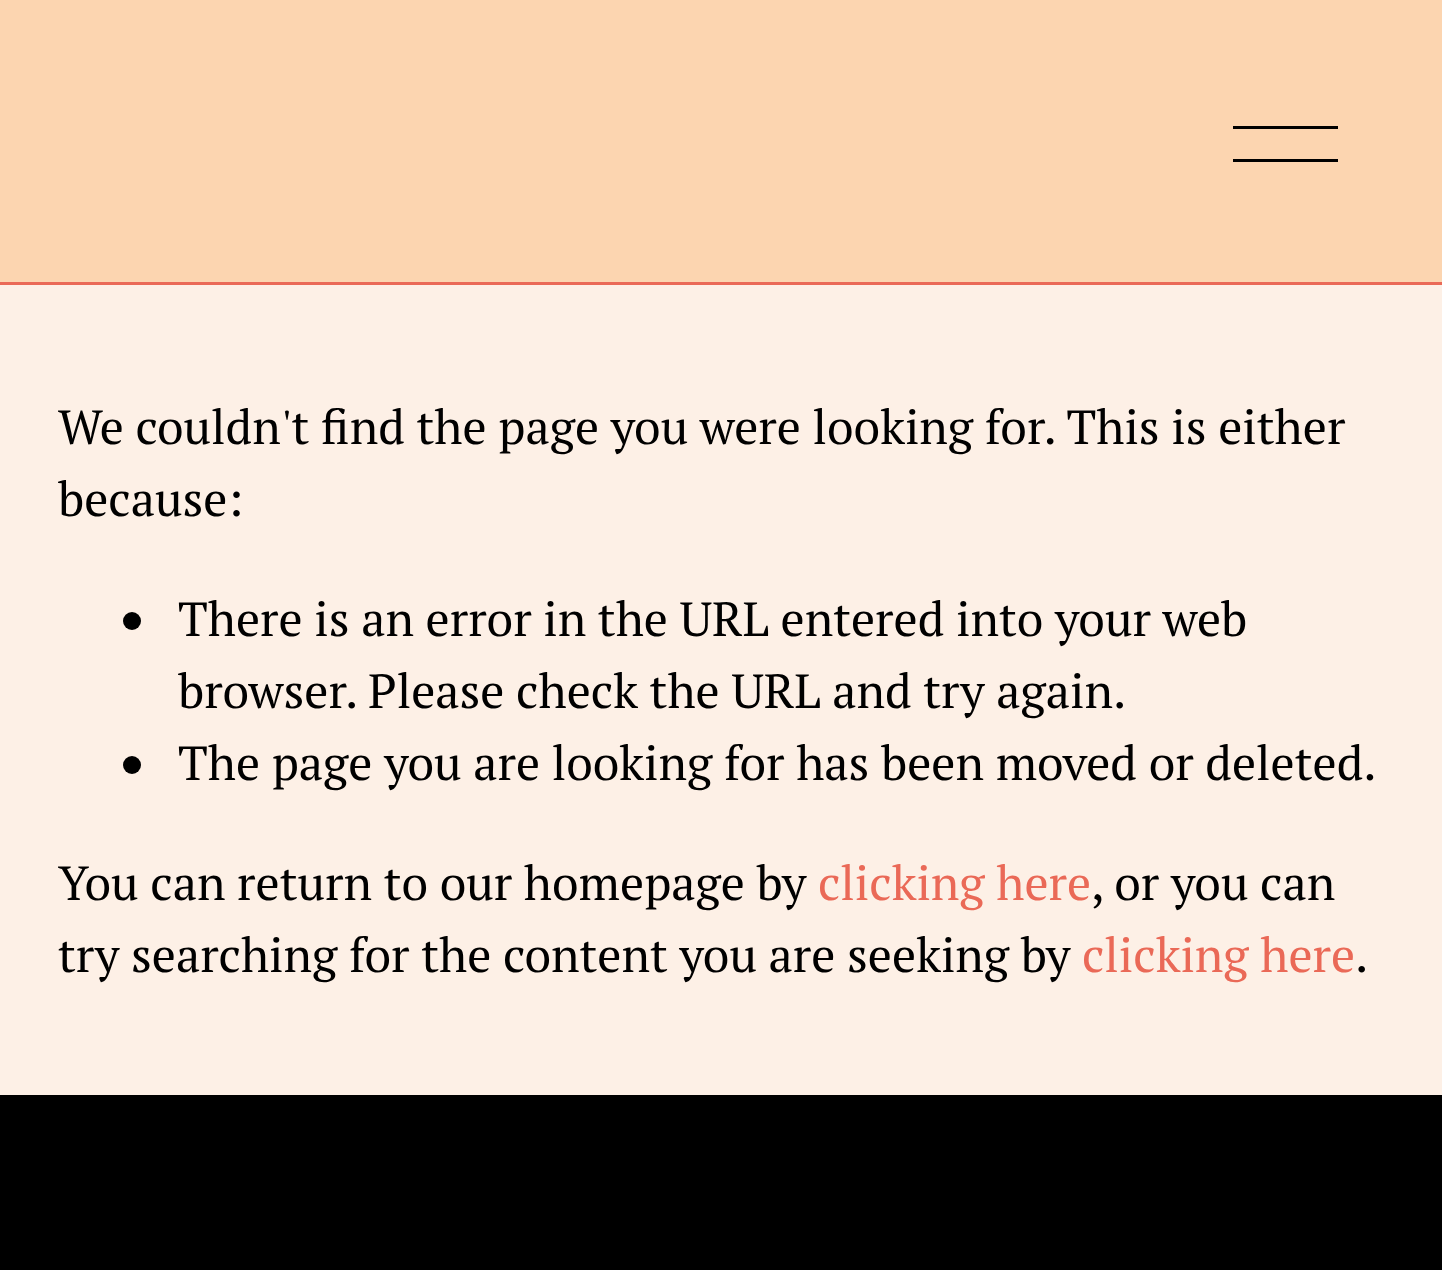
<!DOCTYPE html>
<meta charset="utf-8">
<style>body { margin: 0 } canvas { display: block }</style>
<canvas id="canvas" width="1442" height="1270"></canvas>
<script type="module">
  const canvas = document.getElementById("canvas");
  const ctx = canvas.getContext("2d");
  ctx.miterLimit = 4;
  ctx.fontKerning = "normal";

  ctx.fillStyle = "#fdf0e6";
  ctx.fillRect(0, 0, 1442, 1270);
  ctx.fillStyle = "#fcd5b0";
  ctx.fillRect(0, 0, 1442, 282);
  ctx.fillStyle = "#000000";
  ctx.fillRect(1233, 126, 105, 3);
  ctx.fillRect(1233, 159, 105, 3);
  ctx.fillStyle = "#ea6957";
  ctx.fillRect(0, 282, 1442, 3);
  ctx.font = "48px PT Serif";
  ctx.fillStyle = "#000000";
  ctx.fillText("We couldn't find the page you were looking for. This is either", 58, 444);
  ctx.fillText("because:", 58, 516);
  ctx.beginPath();
  ctx.arc(132, 621, 9, 0, Math.PI * 2);
  ctx.fill();
  ctx.fillText("There is an error in the URL entered into your web", 178, 636);
  ctx.fillText("browser. Please check the URL and try again.", 178, 708);
  ctx.beginPath();
  ctx.arc(132, 765, 9, 0, Math.PI * 2);
  ctx.fill();
  ctx.fillText("The page you are looking for has been moved or deleted.", 178, 780);
  ctx.fillText("You can return to our homepage by", 58, 900);
  ctx.fillStyle = "#ea6957";
  ctx.fillText("clicking here", 818, 900);
  ctx.fillStyle = "#000000";
  ctx.fillText(", or you can", 1091, 900);
  ctx.fillText("try searching for the content you are seeking by", 58, 972);
  ctx.fillStyle = "#ea6957";
  ctx.fillText("clicking here", 1082, 972);
  ctx.fillStyle = "#000000";
  ctx.fillText(".", 1355, 972);
  ctx.fillRect(0, 1095, 1442, 175);
</script>
